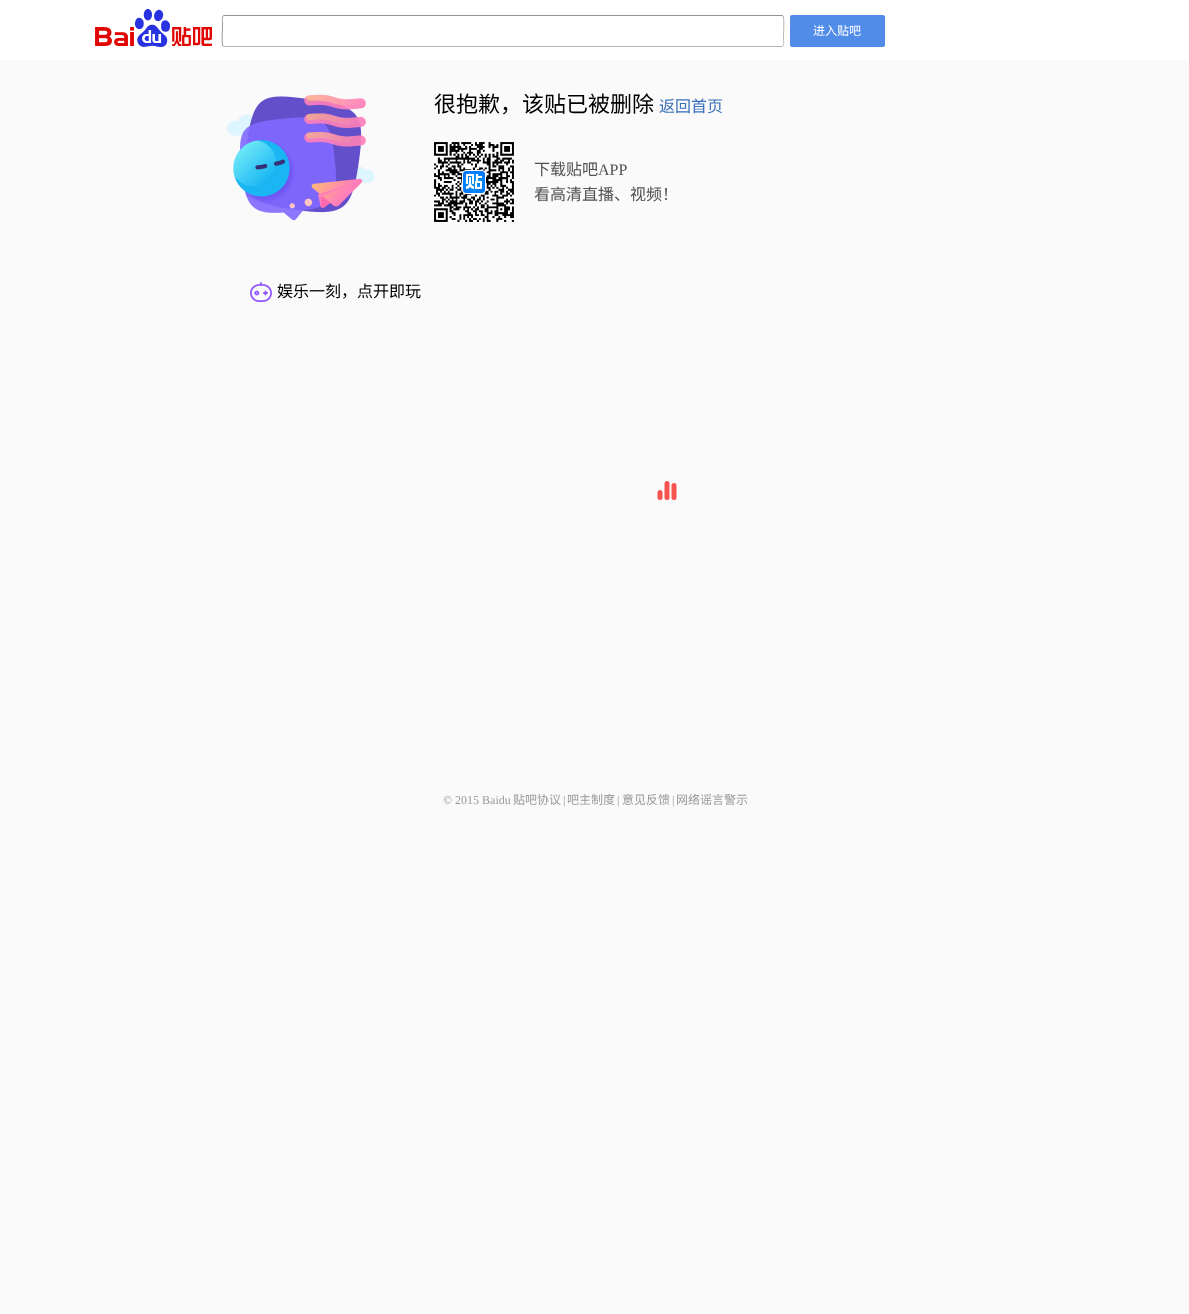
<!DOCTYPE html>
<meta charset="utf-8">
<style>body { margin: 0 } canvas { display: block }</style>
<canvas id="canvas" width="1189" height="1314"></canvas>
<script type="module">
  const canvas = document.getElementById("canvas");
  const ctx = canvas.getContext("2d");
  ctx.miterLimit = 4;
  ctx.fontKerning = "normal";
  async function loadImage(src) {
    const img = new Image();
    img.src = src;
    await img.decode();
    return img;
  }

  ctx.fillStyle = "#fafafa";
  ctx.fillRect(0, 0, 1189, 1314);
  ctx.fillStyle = "#ffffff";
  ctx.fillRect(0, 0, 1189, 60);
  ctx.drawImage(await loadImage("img1.png"), 95, 9, 117, 38);
  ctx.beginPath();
  ctx.moveTo(783, 16);
  ctx.bezierCurveTo(784.5, 17, 783.5, 33, 783.5, 35.5);
  ctx.lineTo(783.5, 40.5);
  ctx.bezierCurveTo(783.5, 40.5, 784.5, 46.5, 782, 46.5);
  ctx.lineTo(224, 46.5);
  ctx.lineTo(223, 46);
  ctx.strokeStyle = "#b6b6b6";
  ctx.stroke();
  ctx.beginPath();
  ctx.moveTo(223, 46);
  ctx.bezierCurveTo(221.5, 45, 222.5, 29, 222.5, 26.5);
  ctx.lineTo(222.5, 21.5);
  ctx.bezierCurveTo(222.5, 21.5, 221.5, 15.5, 224, 15.5);
  ctx.lineTo(782, 15.5);
  ctx.lineTo(783, 16);
  ctx.strokeStyle = "#949494";
  ctx.stroke();
  ctx.fillStyle = "#528ce9";
  ctx.beginPath();
  ctx.roundRect(790, 15, 95, 32, 2);
  ctx.fill();
  ctx.font = "12px Noto Sans CJK SC";
  ctx.fillStyle = "#ffffff";
  ctx.fillText("进入贴吧", 813, 35);
  ctx.drawImage(await loadImage("img2.png"), 227, 94, 148, 127);
  ctx.font = "22px Noto Sans CJK SC";
  ctx.fillStyle = "#000000";
  ctx.fillText("很抱歉，该贴已被删除", 434, 112);
  ctx.font = "16px Noto Sans CJK SC";
  ctx.fillStyle = "#386fb9";
  ctx.fillText("返回首页", 659, 112);
  ctx.drawImage(await loadImage("img3.png"), 434, 142, 80, 80);
  ctx.fillStyle = "#515154";
  ctx.fillText("下载贴吧", 534, 175);
  ctx.font = "16px Liberation Serif";
  ctx.fillText("APP", 598, 175);
  ctx.font = "16px Noto Sans CJK SC";
  ctx.fillText("看高清直播、视频！", 534, 200);
  ctx.drawImage(await loadImage("img4.png"), 250, 282, 427, 218);
  ctx.font = "12px Liberation Serif";
  ctx.fillStyle = "#999999";
  ctx.fillText("© 2015 Baidu", 443, 804);
  ctx.font = "12px Noto Sans CJK SC";
  ctx.fillText("贴吧协议", 513, 804);
  ctx.font = "12px Liberation Serif";
  ctx.fillText("|", 563, 804);
  ctx.font = "12px Noto Sans CJK SC";
  ctx.fillText("吧主制度", 567, 804);
  ctx.font = "12px Liberation Serif";
  ctx.fillText("|", 617, 804);
  ctx.font = "12px Noto Sans CJK SC";
  ctx.fillText("意见反馈", 622, 804);
  ctx.font = "12px Liberation Serif";
  ctx.fillText("|", 672, 804);
  ctx.font = "12px Noto Sans CJK SC";
  ctx.fillText("网络谣言警示", 676, 804);
</script>
